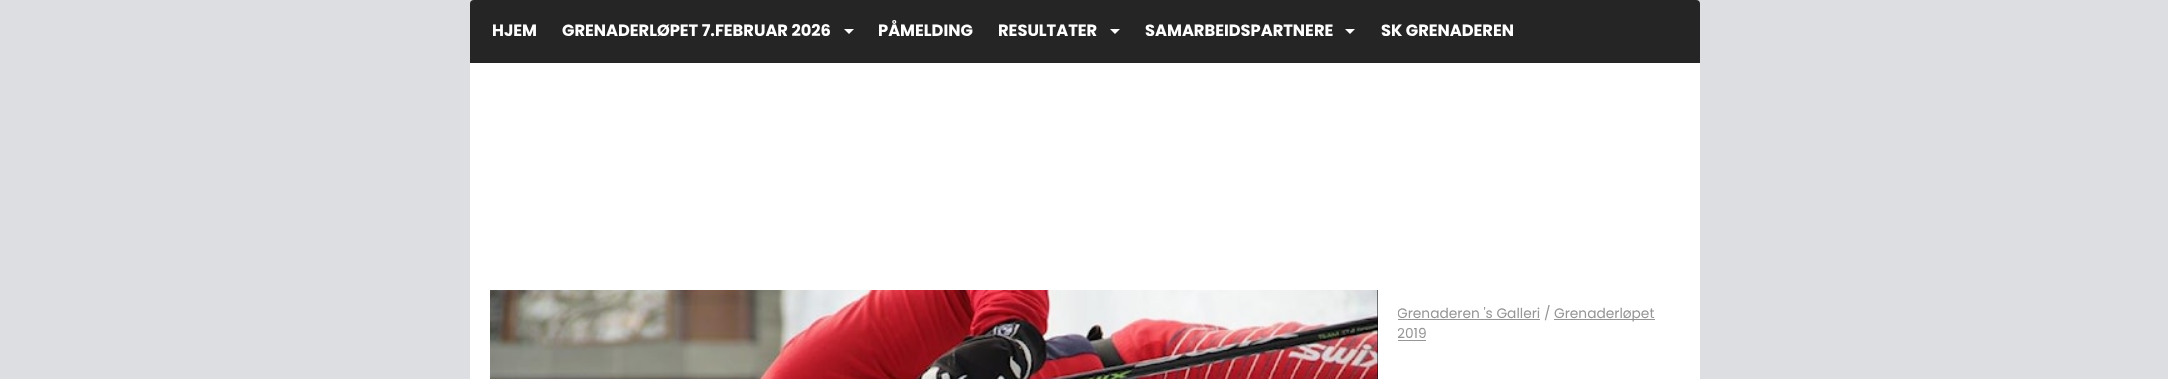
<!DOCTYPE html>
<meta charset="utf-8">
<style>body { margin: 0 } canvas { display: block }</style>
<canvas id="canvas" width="2168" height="379"></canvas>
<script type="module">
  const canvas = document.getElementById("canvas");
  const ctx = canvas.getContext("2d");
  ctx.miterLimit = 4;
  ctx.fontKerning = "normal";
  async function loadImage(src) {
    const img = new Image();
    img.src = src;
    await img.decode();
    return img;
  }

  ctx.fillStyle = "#dddee2";
  ctx.fillRect(0, 0, 2168, 379);
  ctx.fillStyle = "#252525";
  ctx.beginPath();
  ctx.roundRect(470, 0, 1230, 63, [4, 4, 0, 0]);
  ctx.fill();
  ctx.font = "bold 16.25px Poppins";
  ctx.fillStyle = "#ffffff";
  ctx.fillText("HJEM", 492, 36);
  ctx.fillText("GRENADERLØPET 7.FEBRUAR 2026", 562, 36);
  ctx.beginPath();
  ctx.moveTo(844, 29);
  ctx.lineTo(854, 29);
  ctx.lineTo(849, 34);
  ctx.closePath();
  ctx.fill();
  ctx.fillText("PÅMELDING", 878, 36);
  ctx.fillText("RESULTATER", 998, 36);
  ctx.beginPath();
  ctx.moveTo(1110, 29);
  ctx.lineTo(1120, 29);
  ctx.lineTo(1115, 34);
  ctx.closePath();
  ctx.fill();
  ctx.fillText("SAMARBEIDSPARTNERE", 1145, 36);
  ctx.beginPath();
  ctx.moveTo(1345, 29);
  ctx.lineTo(1355, 29);
  ctx.lineTo(1350, 34);
  ctx.closePath();
  ctx.fill();
  ctx.fillText("SK GRENADEREN", 1381, 36);
  ctx.fillRect(470, 63, 1230, 316);
  ctx.fillStyle = "#000000";
  ctx.fillRect(1377, 290, 1, 89);
  ctx.drawImage(await loadImage("img1.png"), 490, 290, 888, 89);
  ctx.save();
  ctx.beginPath();
  ctx.rect(1398, 303, 282, 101);
  ctx.clip();
  ctx.font = "13.75px Poppins";
  ctx.fillStyle = "#959595";
  ctx.fillText("Grenaderen 's Galleri", 1397, 318);
  ctx.restore();
  ctx.fillStyle = "#959595";
  ctx.fillRect(1398, 319, 142, 1);
  ctx.font = "13.75px Poppins";
  ctx.fillText("/", 1544, 318);
  ctx.fillRect(1554, 319, 101, 1);
  ctx.fillText("Grenaderløpet", 1554, 318);
  ctx.save();
  ctx.beginPath();
  ctx.rect(1398, 303, 282, 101);
  ctx.clip();
  ctx.fillText("2019", 1397, 338);
  ctx.restore();
  ctx.fillRect(1398, 340, 28, 1);
</script>
